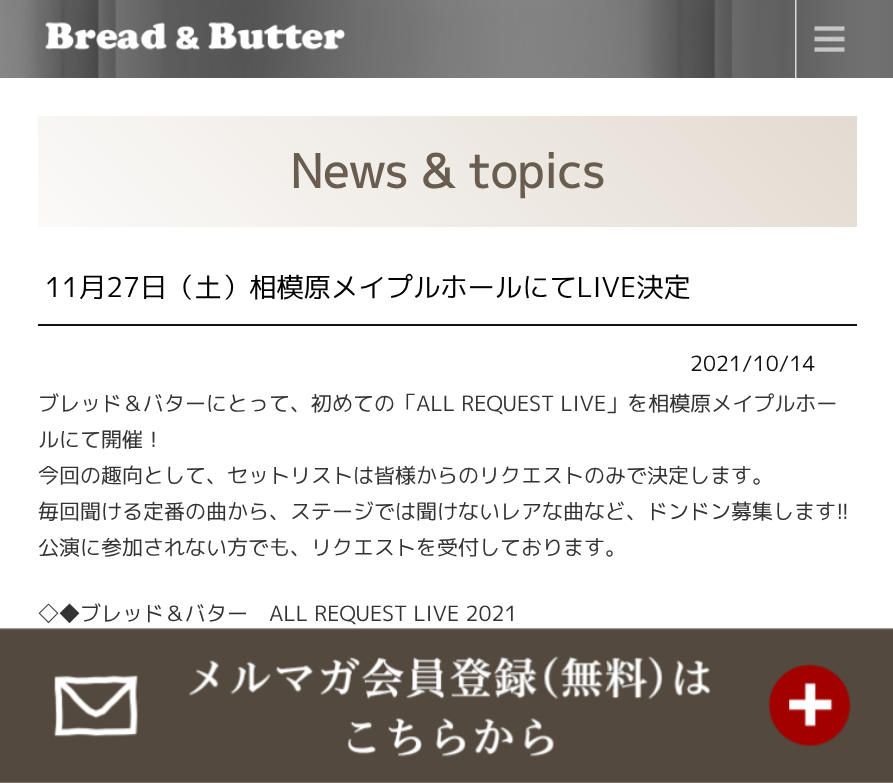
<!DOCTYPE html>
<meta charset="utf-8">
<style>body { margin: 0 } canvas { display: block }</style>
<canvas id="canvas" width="893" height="783"></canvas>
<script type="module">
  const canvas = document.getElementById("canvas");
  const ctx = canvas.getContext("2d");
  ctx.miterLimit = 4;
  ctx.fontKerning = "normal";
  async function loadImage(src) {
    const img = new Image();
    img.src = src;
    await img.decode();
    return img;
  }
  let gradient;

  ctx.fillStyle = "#ffffff";
  ctx.fillRect(0, 0, 893, 783);
  ctx.drawImage(await loadImage("img1.png"), 0, 0, 893, 78);
  ctx.drawImage(await loadImage("img2.png"), 795, 0, 50, 78);
  ctx.drawImage(await loadImage("img3.png"), 45, 22, 300, 28);
  gradient = ctx.createLinearGradient(680, -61, 214, 404);
  gradient.addColorStop(0, "#e3dbd1");
  gradient.addColorStop(1, "#fbfaf9");
  ctx.fillStyle = gradient;
  ctx.fillRect(38, 116, 819, 111);
  ctx.font = "bold 46.25px 'M PLUS 1p'";
  ctx.fillStyle = "#685d4f";
  ctx.fillText("News & topics", 290, 188);
  ctx.fillStyle = "#111111";
  ctx.fillRect(38, 324, 819, 2);
  ctx.font = "27.3px 'M PLUS 1p'";
  ctx.fillStyle = "#000000";
  ctx.fillText("11月27日（土）相模原メイプルホールにてLIVE決定", 45, 297);
  ctx.font = "21px 'M PLUS 1p'";
  ctx.fillStyle = "#111111";
  ctx.fillText("2021/10/14", 690, 371);
  ctx.fillStyle = "#333333";
  ctx.fillText("ブレッド＆バターにとって、初めての「ALL REQUEST LIVE」を相模原メイプルホー", 38, 411);
  ctx.fillText("ルにて開催！", 38, 447);
  ctx.fillText("今回の趣向として、セットリストは皆様からのリクエストのみで決定します。", 38, 483);
  ctx.fillText("毎回聞ける定番の曲から、ステージでは聞けないレアな曲など、ドンドン募集します!!", 38, 519);
  ctx.fillText("公演に参加されない方でも、リクエストを受付しております。", 38, 555);
  ctx.fillText("◇◆ブレッド＆バター　ALL REQUEST LIVE 2021", 38, 621);
  ctx.drawImage(await loadImage("img4.png"), 0, 628, 893, 155);
</script>
